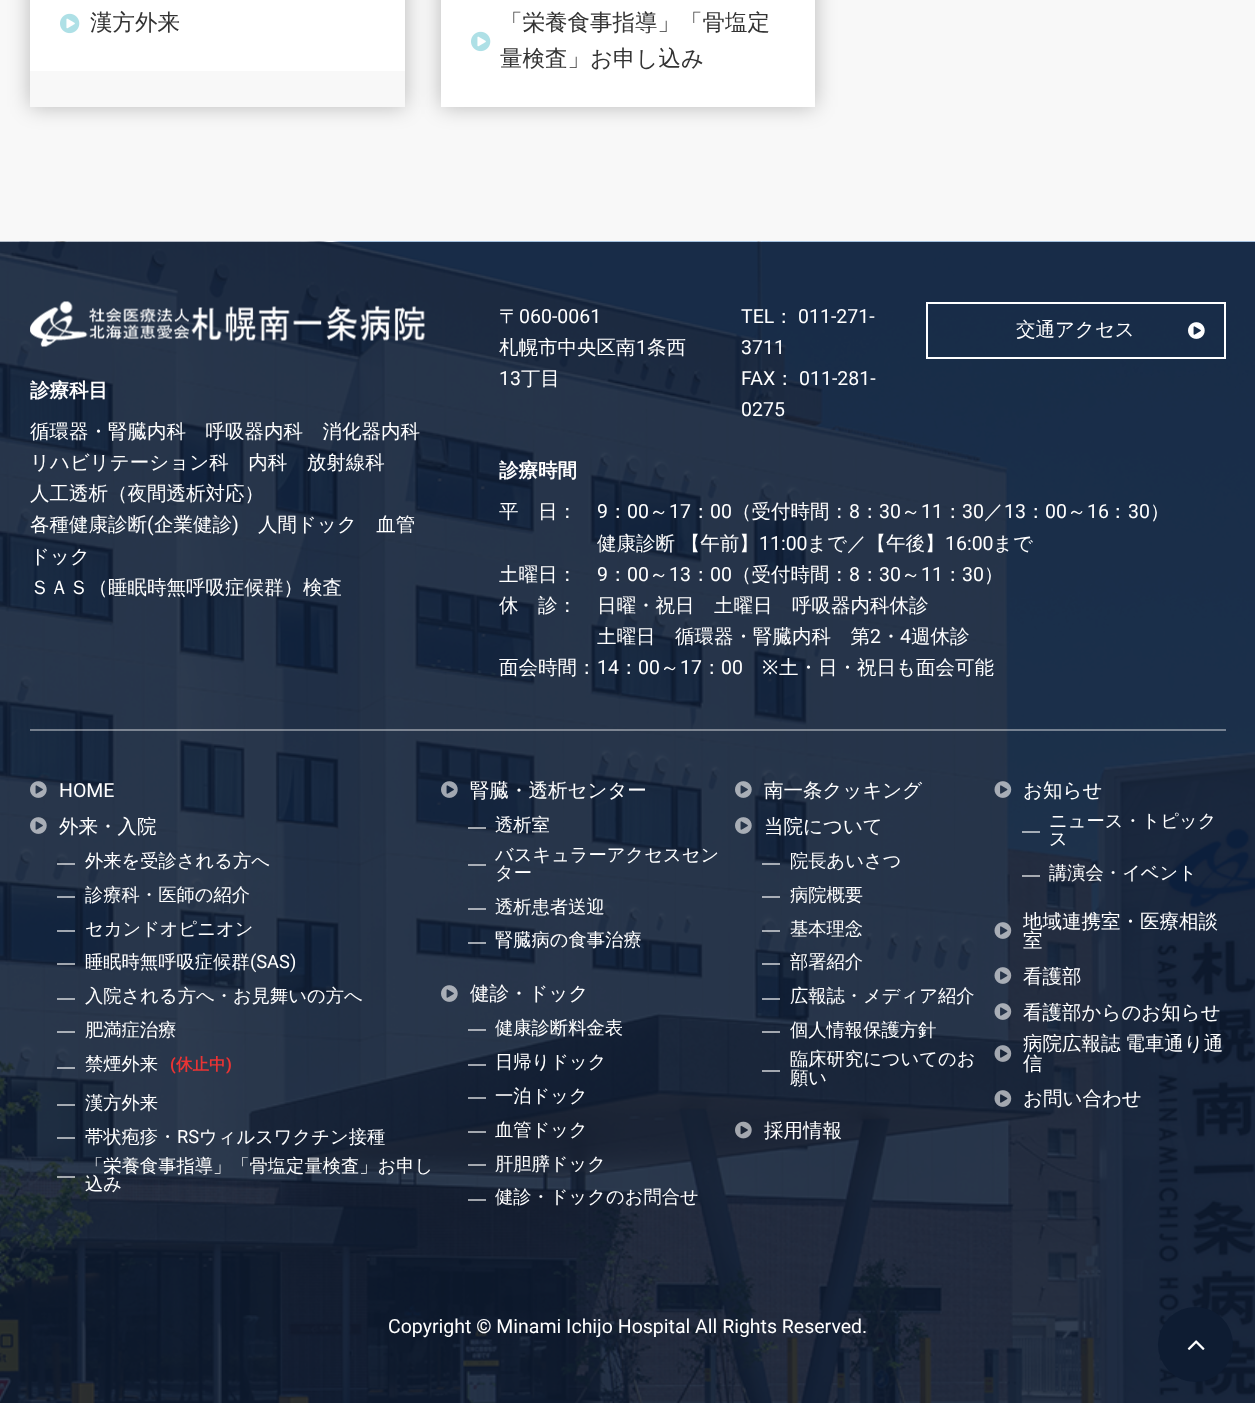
<!DOCTYPE html>
<meta charset="utf-8">
<style>body { margin: 0 } canvas { display: block }</style>
<canvas id="canvas" width="1255" height="1403"></canvas>
<script type="module">
  const canvas = document.getElementById("canvas");
  const ctx = canvas.getContext("2d");
  ctx.miterLimit = 4;
  ctx.fontKerning = "normal";
  async function loadImage(src) {
    const img = new Image();
    img.src = src;
    await img.decode();
    return img;
  }

  ctx.fillStyle = "#f8f8f8";
  ctx.fillRect(0, 0, 1255, 1403);
  ctx.save();
  ctx.beginPath();
  ctx.moveTo(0, 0);
  ctx.lineTo(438, 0);
  ctx.lineTo(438, 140);
  ctx.lineTo(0, 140);
  ctx.closePath();
  ctx.moveTo(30, -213);
  ctx.lineTo(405, -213);
  ctx.lineTo(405, 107);
  ctx.lineTo(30, 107);
  ctx.closePath();
  ctx.clip("evenodd");
  ctx.fillStyle = "rgba(0, 0, 0, 0.25)";
  ctx.filter = "blur(10.5px)";
  ctx.beginPath();
  ctx.rect(30, -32, 375, 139);
  ctx.fill();
  ctx.filter = "none";
  ctx.restore();
  ctx.fillStyle = "#ffffff";
  ctx.fillRect(30, 0, 375, 71);
  ctx.drawImage(await loadImage("img1.png"), 60, 13, 20, 21);
  ctx.font = "500 22.5px WenQuanYi Zen Hei";
  ctx.fillStyle = "#333333";
  ctx.fillText("漢方外来", 90, 30);
  ctx.fillStyle = "rgba(0, 0, 0, 0.25)";
  ctx.filter = "blur(10.5px)";
  ctx.beginPath();
  ctx.rect(441, -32, 374, 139);
  ctx.fill();
  ctx.filter = "none";
  ctx.fillStyle = "#ffffff";
  ctx.fillRect(441, 0, 374, 107);
  ctx.fillStyle = "#333333";
  ctx.fillText("「栄養食事指導」「骨塩定", 500, 30);
  ctx.drawImage(await loadImage("img1.png"), 471, 31, 20, 21);
  ctx.fillText("量検査」お申し込み", 500, 66);
  ctx.drawImage(await loadImage("img2.png"), 0, 241, 1255, 1162);
  ctx.fillStyle = "rgba(255, 255, 255, 0.4)";
  ctx.fillRect(30, 729, 1196, 2);
  ctx.drawImage(await loadImage("img3.png"), 30, 301, 395, 46);
  ctx.font = "bold 19.5px WenQuanYi Zen Hei";
  ctx.fillStyle = "#ffffff";
  ctx.fillText("診療科目", 30, 397);
  ctx.font = "500 19.5px WenQuanYi Zen Hei";
  ctx.fillText("循環器・腎臓内科　呼吸器内科　消化器内科", 30, 438);
  ctx.fillText("リハビリテーション科　内科　放射線科", 30, 469);
  ctx.fillText("人工透析（夜間透析対応）", 30, 500);
  ctx.fillText("各種健康診断", 30, 531);
  ctx.font = "19.5px Roboto";
  ctx.fillText("(", 147, 531);
  ctx.font = "500 19.5px WenQuanYi Zen Hei";
  ctx.fillText("企業健診", 154, 531);
  ctx.font = "19.5px Roboto";
  ctx.fillText(")", 232, 531);
  ctx.font = "500 19.5px WenQuanYi Zen Hei";
  ctx.fillText("人間ドック　血管", 258, 531);
  ctx.fillText("ドック", 30, 563);
  ctx.fillText("ＳＡＳ（睡眠時無呼吸症候群）検査", 30, 594);
  ctx.fillText("〒", 499, 323);
  ctx.font = "19.5px Roboto";
  ctx.fillText("060-0061", 519, 323);
  ctx.font = "500 19.5px WenQuanYi Zen Hei";
  ctx.fillText("札幌市中央区南", 499, 354);
  ctx.font = "19.5px Roboto";
  ctx.fillText("1", 636, 354);
  ctx.font = "500 19.5px WenQuanYi Zen Hei";
  ctx.fillText("条西", 647, 354);
  ctx.font = "19.5px Roboto";
  ctx.fillText("13", 499, 385);
  ctx.font = "500 19.5px WenQuanYi Zen Hei";
  ctx.fillText("丁目", 521, 385);
  ctx.font = "19.5px Roboto";
  ctx.fillText("TEL", 741, 323);
  ctx.font = "500 19.5px WenQuanYi Zen Hei";
  ctx.fillText("：", 774, 323);
  ctx.font = "19.5px Roboto";
  ctx.fillText("011-271-", 798, 323);
  ctx.fillText("3711", 741, 354);
  ctx.fillText("FAX", 741, 385);
  ctx.font = "500 19.5px WenQuanYi Zen Hei";
  ctx.fillText("：", 775, 385);
  ctx.font = "19.5px Roboto";
  ctx.fillText("011-281-", 799, 385);
  ctx.fillText("0275", 741, 416);
  ctx.strokeStyle = "#ffffff";
  ctx.lineWidth = 2;
  ctx.strokeRect(927, 303, 298, 55);
  ctx.font = "500 19.5px WenQuanYi Zen Hei";
  ctx.fillText("交通アクセス", 1016, 336);
  ctx.drawImage(await loadImage("img4.png"), 1188, 322, 17, 17);
  ctx.font = "bold 19.5px WenQuanYi Zen Hei";
  ctx.fillText("診療時間", 499, 477);
  ctx.font = "500 19.5px WenQuanYi Zen Hei";
  ctx.fillText("平　日：", 499, 518);
  ctx.font = "19.5px Roboto";
  ctx.fillText("9", 597, 518);
  ctx.font = "500 19.5px WenQuanYi Zen Hei";
  ctx.fillText("：", 608, 518);
  ctx.font = "19.5px Roboto";
  ctx.fillText("00", 627, 518);
  ctx.font = "500 19.5px WenQuanYi Zen Hei";
  ctx.fillText("～", 649, 518);
  ctx.font = "19.5px Roboto";
  ctx.fillText("17", 669, 518);
  ctx.font = "500 19.5px WenQuanYi Zen Hei";
  ctx.fillText("：", 691, 518);
  ctx.font = "19.5px Roboto";
  ctx.fillText("00", 710, 518);
  ctx.font = "500 19.5px WenQuanYi Zen Hei";
  ctx.fillText("（受付時間：", 732, 518);
  ctx.font = "19.5px Roboto";
  ctx.fillText("8", 849, 518);
  ctx.font = "500 19.5px WenQuanYi Zen Hei";
  ctx.fillText("：", 860, 518);
  ctx.font = "19.5px Roboto";
  ctx.fillText("30", 879, 518);
  ctx.font = "500 19.5px WenQuanYi Zen Hei";
  ctx.fillText("～", 901, 518);
  ctx.font = "19.5px Roboto";
  ctx.fillText("11", 921, 518);
  ctx.font = "500 19.5px WenQuanYi Zen Hei";
  ctx.fillText("：", 943, 518);
  ctx.font = "19.5px Roboto";
  ctx.fillText("30", 962, 518);
  ctx.font = "500 19.5px WenQuanYi Zen Hei";
  ctx.fillText("／", 984, 518);
  ctx.font = "19.5px Roboto";
  ctx.fillText("13", 1004, 518);
  ctx.font = "500 19.5px WenQuanYi Zen Hei";
  ctx.fillText("：", 1026, 518);
  ctx.font = "19.5px Roboto";
  ctx.fillText("00", 1045, 518);
  ctx.font = "500 19.5px WenQuanYi Zen Hei";
  ctx.fillText("～", 1067, 518);
  ctx.font = "19.5px Roboto";
  ctx.fillText("16", 1087, 518);
  ctx.font = "500 19.5px WenQuanYi Zen Hei";
  ctx.fillText("：", 1108, 518);
  ctx.font = "19.5px Roboto";
  ctx.fillText("30", 1128, 518);
  ctx.font = "500 19.5px WenQuanYi Zen Hei";
  ctx.fillText("）", 1150, 518);
  ctx.fillText("健康診断 【午前】", 597, 550);
  ctx.font = "19.5px Roboto";
  ctx.fillText("11:00", 759, 550);
  ctx.font = "500 19.5px WenQuanYi Zen Hei";
  ctx.fillText("まで／【午後】", 807, 550);
  ctx.font = "19.5px Roboto";
  ctx.fillText("16:00", 945, 550);
  ctx.font = "500 19.5px WenQuanYi Zen Hei";
  ctx.fillText("まで", 993, 550);
  ctx.fillText("土曜日：", 499, 581);
  ctx.font = "19.5px Roboto";
  ctx.fillText("9", 597, 581);
  ctx.font = "500 19.5px WenQuanYi Zen Hei";
  ctx.fillText("：", 608, 581);
  ctx.font = "19.5px Roboto";
  ctx.fillText("00", 627, 581);
  ctx.font = "500 19.5px WenQuanYi Zen Hei";
  ctx.fillText("～", 649, 581);
  ctx.font = "19.5px Roboto";
  ctx.fillText("13", 669, 581);
  ctx.font = "500 19.5px WenQuanYi Zen Hei";
  ctx.fillText("：", 691, 581);
  ctx.font = "19.5px Roboto";
  ctx.fillText("00", 710, 581);
  ctx.font = "500 19.5px WenQuanYi Zen Hei";
  ctx.fillText("（受付時間：", 732, 581);
  ctx.font = "19.5px Roboto";
  ctx.fillText("8", 849, 581);
  ctx.font = "500 19.5px WenQuanYi Zen Hei";
  ctx.fillText("：", 860, 581);
  ctx.font = "19.5px Roboto";
  ctx.fillText("30", 879, 581);
  ctx.font = "500 19.5px WenQuanYi Zen Hei";
  ctx.fillText("～", 901, 581);
  ctx.font = "19.5px Roboto";
  ctx.fillText("11", 921, 581);
  ctx.font = "500 19.5px WenQuanYi Zen Hei";
  ctx.fillText("：", 943, 581);
  ctx.font = "19.5px Roboto";
  ctx.fillText("30", 962, 581);
  ctx.font = "500 19.5px WenQuanYi Zen Hei";
  ctx.fillText("）", 984, 581);
  ctx.fillText("休　診：", 499, 612);
  ctx.fillText("日曜・祝日　土曜日　呼吸器内科休診", 597, 612);
  ctx.fillText("土曜日　循環器・腎臓内科　第", 597, 643);
  ctx.font = "19.5px Roboto";
  ctx.fillText("2", 870, 643);
  ctx.font = "500 19.5px WenQuanYi Zen Hei";
  ctx.fillText("・", 881, 643);
  ctx.font = "19.5px Roboto";
  ctx.fillText("4", 900, 643);
  ctx.font = "500 19.5px WenQuanYi Zen Hei";
  ctx.fillText("週休診", 911, 643);
  ctx.fillText("面会時間：", 499, 674);
  ctx.font = "19.5px Roboto";
  ctx.fillText("14", 597, 674);
  ctx.font = "500 19.5px WenQuanYi Zen Hei";
  ctx.fillText("：", 619, 674);
  ctx.font = "19.5px Roboto";
  ctx.fillText("00", 638, 674);
  ctx.font = "500 19.5px WenQuanYi Zen Hei";
  ctx.fillText("～", 660, 674);
  ctx.font = "19.5px Roboto";
  ctx.fillText("17", 680, 674);
  ctx.font = "500 19.5px WenQuanYi Zen Hei";
  ctx.fillText("：", 702, 674);
  ctx.font = "19.5px Roboto";
  ctx.fillText("00", 721, 674);
  ctx.font = "19.5px Noto Sans";
  ctx.fillText("※", 762, 674);
  ctx.font = "500 19.5px WenQuanYi Zen Hei";
  ctx.fillText("土・日・祝日も面会可能", 779, 674);
  ctx.drawImage(await loadImage("img5.png"), 30, 781, 17, 17);
  ctx.font = "19.5px Roboto";
  ctx.fillText("HOME", 59, 797);
  ctx.drawImage(await loadImage("img6.png"), 30, 817, 17, 17);
  ctx.font = "500 19.5px WenQuanYi Zen Hei";
  ctx.fillText("外来・入院", 59, 833);
  ctx.fillStyle = "rgba(255, 255, 255, 0.6)";
  ctx.fillRect(57, 863, 18, 2);
  ctx.font = "500 18.3px WenQuanYi Zen Hei";
  ctx.fillStyle = "#ffffff";
  ctx.fillText("外来を受診される方へ", 85, 867);
  ctx.fillStyle = "rgba(255, 255, 255, 0.6)";
  ctx.fillRect(57, 896, 18, 2);
  ctx.fillStyle = "#ffffff";
  ctx.fillText("診療科・医師の紹介", 85, 901);
  ctx.fillStyle = "rgba(255, 255, 255, 0.6)";
  ctx.fillRect(57, 930, 18, 2);
  ctx.fillStyle = "#ffffff";
  ctx.fillText("セカンドオピニオン", 85, 935);
  ctx.fillStyle = "rgba(255, 255, 255, 0.6)";
  ctx.fillRect(57, 963, 18, 2);
  ctx.fillStyle = "#ffffff";
  ctx.fillText("睡眠時無呼吸症候群", 85, 968);
  ctx.font = "18.3px Roboto";
  ctx.fillText("(SAS)", 250, 968);
  ctx.fillStyle = "#a9afb7";
  ctx.fillRect(57, 998, 18, 2);
  ctx.font = "500 18.3px WenQuanYi Zen Hei";
  ctx.fillStyle = "#ffffff";
  ctx.fillText("入院される方へ・お見舞いの方へ", 85, 1002);
  ctx.fillStyle = "#a9afb7";
  ctx.fillRect(57, 1031, 18, 2);
  ctx.fillStyle = "#ffffff";
  ctx.fillText("肥満症治療", 85, 1036);
  ctx.fillStyle = "rgba(255, 255, 255, 0.6)";
  ctx.fillRect(57, 1067, 18, 2);
  ctx.fillStyle = "#ffffff";
  ctx.fillText("禁煙外来", 85, 1070);
  ctx.font = "bold 16.5px Roboto";
  ctx.fillStyle = "#e93434";
  ctx.fillText("(", 170, 1070);
  ctx.font = "bold 16.5px WenQuanYi Zen Hei";
  ctx.fillText("休止中", 176, 1070);
  ctx.font = "bold 16.5px Roboto";
  ctx.fillText(")", 226, 1070);
  ctx.fillStyle = "rgba(255, 255, 255, 0.6)";
  ctx.fillRect(57, 1104, 18, 2);
  ctx.font = "500 18.3px WenQuanYi Zen Hei";
  ctx.fillStyle = "#ffffff";
  ctx.fillText("漢方外来", 85, 1109);
  ctx.fillStyle = "rgba(255, 255, 255, 0.6)";
  ctx.fillRect(57, 1137, 18, 2);
  ctx.fillStyle = "#ffffff";
  ctx.fillText("帯状疱疹・", 85, 1143);
  ctx.font = "18.3px Roboto";
  ctx.fillText("RS", 177, 1143);
  ctx.font = "500 18.3px WenQuanYi Zen Hei";
  ctx.fillText("ウィルスワクチン接種", 199, 1143);
  ctx.fillText("「栄養食事指導」「骨塩定量検査」お申し", 85, 1172);
  ctx.fillStyle = "rgba(255, 255, 255, 0.6)";
  ctx.fillRect(57, 1176, 18, 2);
  ctx.fillStyle = "#ffffff";
  ctx.fillText("込み", 85, 1190);
  ctx.drawImage(await loadImage("img7.png"), 441, 781, 17, 17);
  ctx.font = "500 19.5px WenQuanYi Zen Hei";
  ctx.fillText("腎臓・透析センター", 470, 797);
  ctx.fillStyle = "rgba(255, 255, 255, 0.6)";
  ctx.fillRect(468, 827, 18, 2);
  ctx.font = "500 18.3px WenQuanYi Zen Hei";
  ctx.fillStyle = "#ffffff";
  ctx.fillText("透析室", 495, 831);
  ctx.fillText("バスキュラーアクセスセン", 495, 861);
  ctx.fillStyle = "rgba(255, 255, 255, 0.6)";
  ctx.fillRect(468, 864, 18, 2);
  ctx.fillStyle = "#ffffff";
  ctx.fillText("ター", 495, 879);
  ctx.fillStyle = "#a9aeb7";
  ctx.fillRect(468, 908, 18, 2);
  ctx.fillStyle = "#ffffff";
  ctx.fillText("透析患者送迎", 495, 913);
  ctx.fillStyle = "rgba(255, 255, 255, 0.6)";
  ctx.fillRect(468, 942, 18, 2);
  ctx.fillStyle = "#ffffff";
  ctx.fillText("腎臓病の食事治療", 495, 946);
  ctx.drawImage(await loadImage("img8.png"), 441, 985, 17, 17);
  ctx.font = "500 19.5px WenQuanYi Zen Hei";
  ctx.fillText("健診・ドック", 470, 1000);
  ctx.fillStyle = "#a9aeb7";
  ctx.fillRect(468, 1029, 18, 2);
  ctx.font = "500 18.3px WenQuanYi Zen Hei";
  ctx.fillStyle = "#ffffff";
  ctx.fillText("健康診断料金表", 495, 1034);
  ctx.fillStyle = "#a1a6af";
  ctx.fillRect(468, 1064, 18, 2);
  ctx.fillStyle = "#ffffff";
  ctx.fillText("日帰りドック", 495, 1068);
  ctx.fillStyle = "#a1a6ae";
  ctx.fillRect(468, 1097, 18, 2);
  ctx.fillStyle = "#ffffff";
  ctx.fillText("一泊ドック", 495, 1102);
  ctx.fillStyle = "#a3a7ae";
  ctx.fillRect(468, 1131, 18, 2);
  ctx.fillStyle = "#ffffff";
  ctx.fillText("血管ドック", 495, 1136);
  ctx.fillStyle = "#a5a9b0";
  ctx.fillRect(468, 1164, 18, 2);
  ctx.fillStyle = "#ffffff";
  ctx.fillText("肝胆膵ドック", 495, 1170);
  ctx.fillStyle = "#a1a5ac";
  ctx.fillRect(468, 1199, 18, 2);
  ctx.fillStyle = "#ffffff";
  ctx.fillText("健診・ドックのお問合せ", 495, 1203);
  ctx.drawImage(await loadImage("img9.png"), 735, 781, 17, 17);
  ctx.font = "500 19.5px WenQuanYi Zen Hei";
  ctx.fillText("南一条クッキング", 764, 797);
  ctx.drawImage(await loadImage("img10.png"), 735, 817, 17, 17);
  ctx.fillText("当院について", 764, 833);
  ctx.fillStyle = "rgba(255, 255, 255, 0.6)";
  ctx.fillRect(762, 863, 18, 2);
  ctx.font = "500 18.3px WenQuanYi Zen Hei";
  ctx.fillStyle = "#ffffff";
  ctx.fillText("院長あいさつ", 790, 867);
  ctx.fillStyle = "#a9aeb7";
  ctx.fillRect(762, 896, 18, 2);
  ctx.fillStyle = "#ffffff";
  ctx.fillText("病院概要", 790, 901);
  ctx.fillStyle = "rgba(255, 255, 255, 0.6)";
  ctx.fillRect(762, 930, 18, 2);
  ctx.fillStyle = "#ffffff";
  ctx.fillText("基本理念", 790, 935);
  ctx.fillStyle = "rgba(255, 255, 255, 0.6)";
  ctx.fillRect(762, 963, 18, 2);
  ctx.fillStyle = "#ffffff";
  ctx.fillText("部署紹介", 790, 968);
  ctx.fillStyle = "rgba(255, 255, 255, 0.6)";
  ctx.fillRect(762, 998, 18, 2);
  ctx.fillStyle = "#ffffff";
  ctx.fillText("広報誌・メディア紹介", 790, 1002);
  ctx.fillStyle = "#a3a8b0";
  ctx.fillRect(762, 1031, 18, 2);
  ctx.fillStyle = "#ffffff";
  ctx.fillText("個人情報保護方針", 790, 1036);
  ctx.fillText("臨床研究についてのお", 790, 1065);
  ctx.fillStyle = "rgba(255, 255, 255, 0.6)";
  ctx.fillRect(762, 1070, 18, 2);
  ctx.fillStyle = "#ffffff";
  ctx.fillText("願い", 790, 1084);
  ctx.drawImage(await loadImage("img11.png"), 735, 1121, 17, 18);
  ctx.font = "500 19.5px WenQuanYi Zen Hei";
  ctx.fillText("採用情報", 764, 1137);
  ctx.drawImage(await loadImage("img12.png"), 994, 781, 18, 17);
  ctx.fillText("お知らせ", 1023, 797);
  ctx.font = "500 18.3px WenQuanYi Zen Hei";
  ctx.fillText("ニュース・トピック", 1049, 827);
  ctx.fillStyle = "#a4adb7";
  ctx.fillRect(1022, 831, 18, 2);
  ctx.fillStyle = "#ffffff";
  ctx.fillText("ス", 1049, 845);
  ctx.fillStyle = "#a7abb2";
  ctx.fillRect(1022, 875, 18, 2);
  ctx.fillStyle = "#ffffff";
  ctx.fillText("講演会・イベント", 1049, 879);
  ctx.drawImage(await loadImage("img13.png"), 994, 922, 18, 17);
  ctx.font = "500 19.5px WenQuanYi Zen Hei";
  ctx.fillText("地域連携室・医療相談", 1023, 928);
  ctx.fillText("室", 1023, 947);
  ctx.drawImage(await loadImage("img14.png"), 994, 967, 18, 17);
  ctx.fillText("看護部", 1023, 983);
  ctx.drawImage(await loadImage("img15.png"), 994, 1003, 18, 17);
  ctx.fillText("看護部からのお知らせ", 1023, 1019);
  ctx.drawImage(await loadImage("img16.png"), 994, 1045, 18, 17);
  ctx.wordSpacing = "-1px";
  ctx.fillText("病院広報誌 電車通り通", 1023, 1050);
  ctx.wordSpacing = "0px";
  ctx.fillText("信", 1023, 1070);
  ctx.drawImage(await loadImage("img17.png"), 994, 1090, 18, 17);
  ctx.fillText("お問い合わせ", 1023, 1105);
  ctx.font = "19.5px Roboto";
  ctx.fillText("Copyright © Minami Ichijo Hospital All Rights Reserved.", 388, 1333);
  ctx.fillStyle = "#0e1c32";
  ctx.beginPath();
  ctx.arc(1195.5, 1344.5, 37.5, 0, Math.PI * 2);
  ctx.fill();
  ctx.drawImage(await loadImage("img18.png"), 1187, 1340, 18, 10);
</script>
